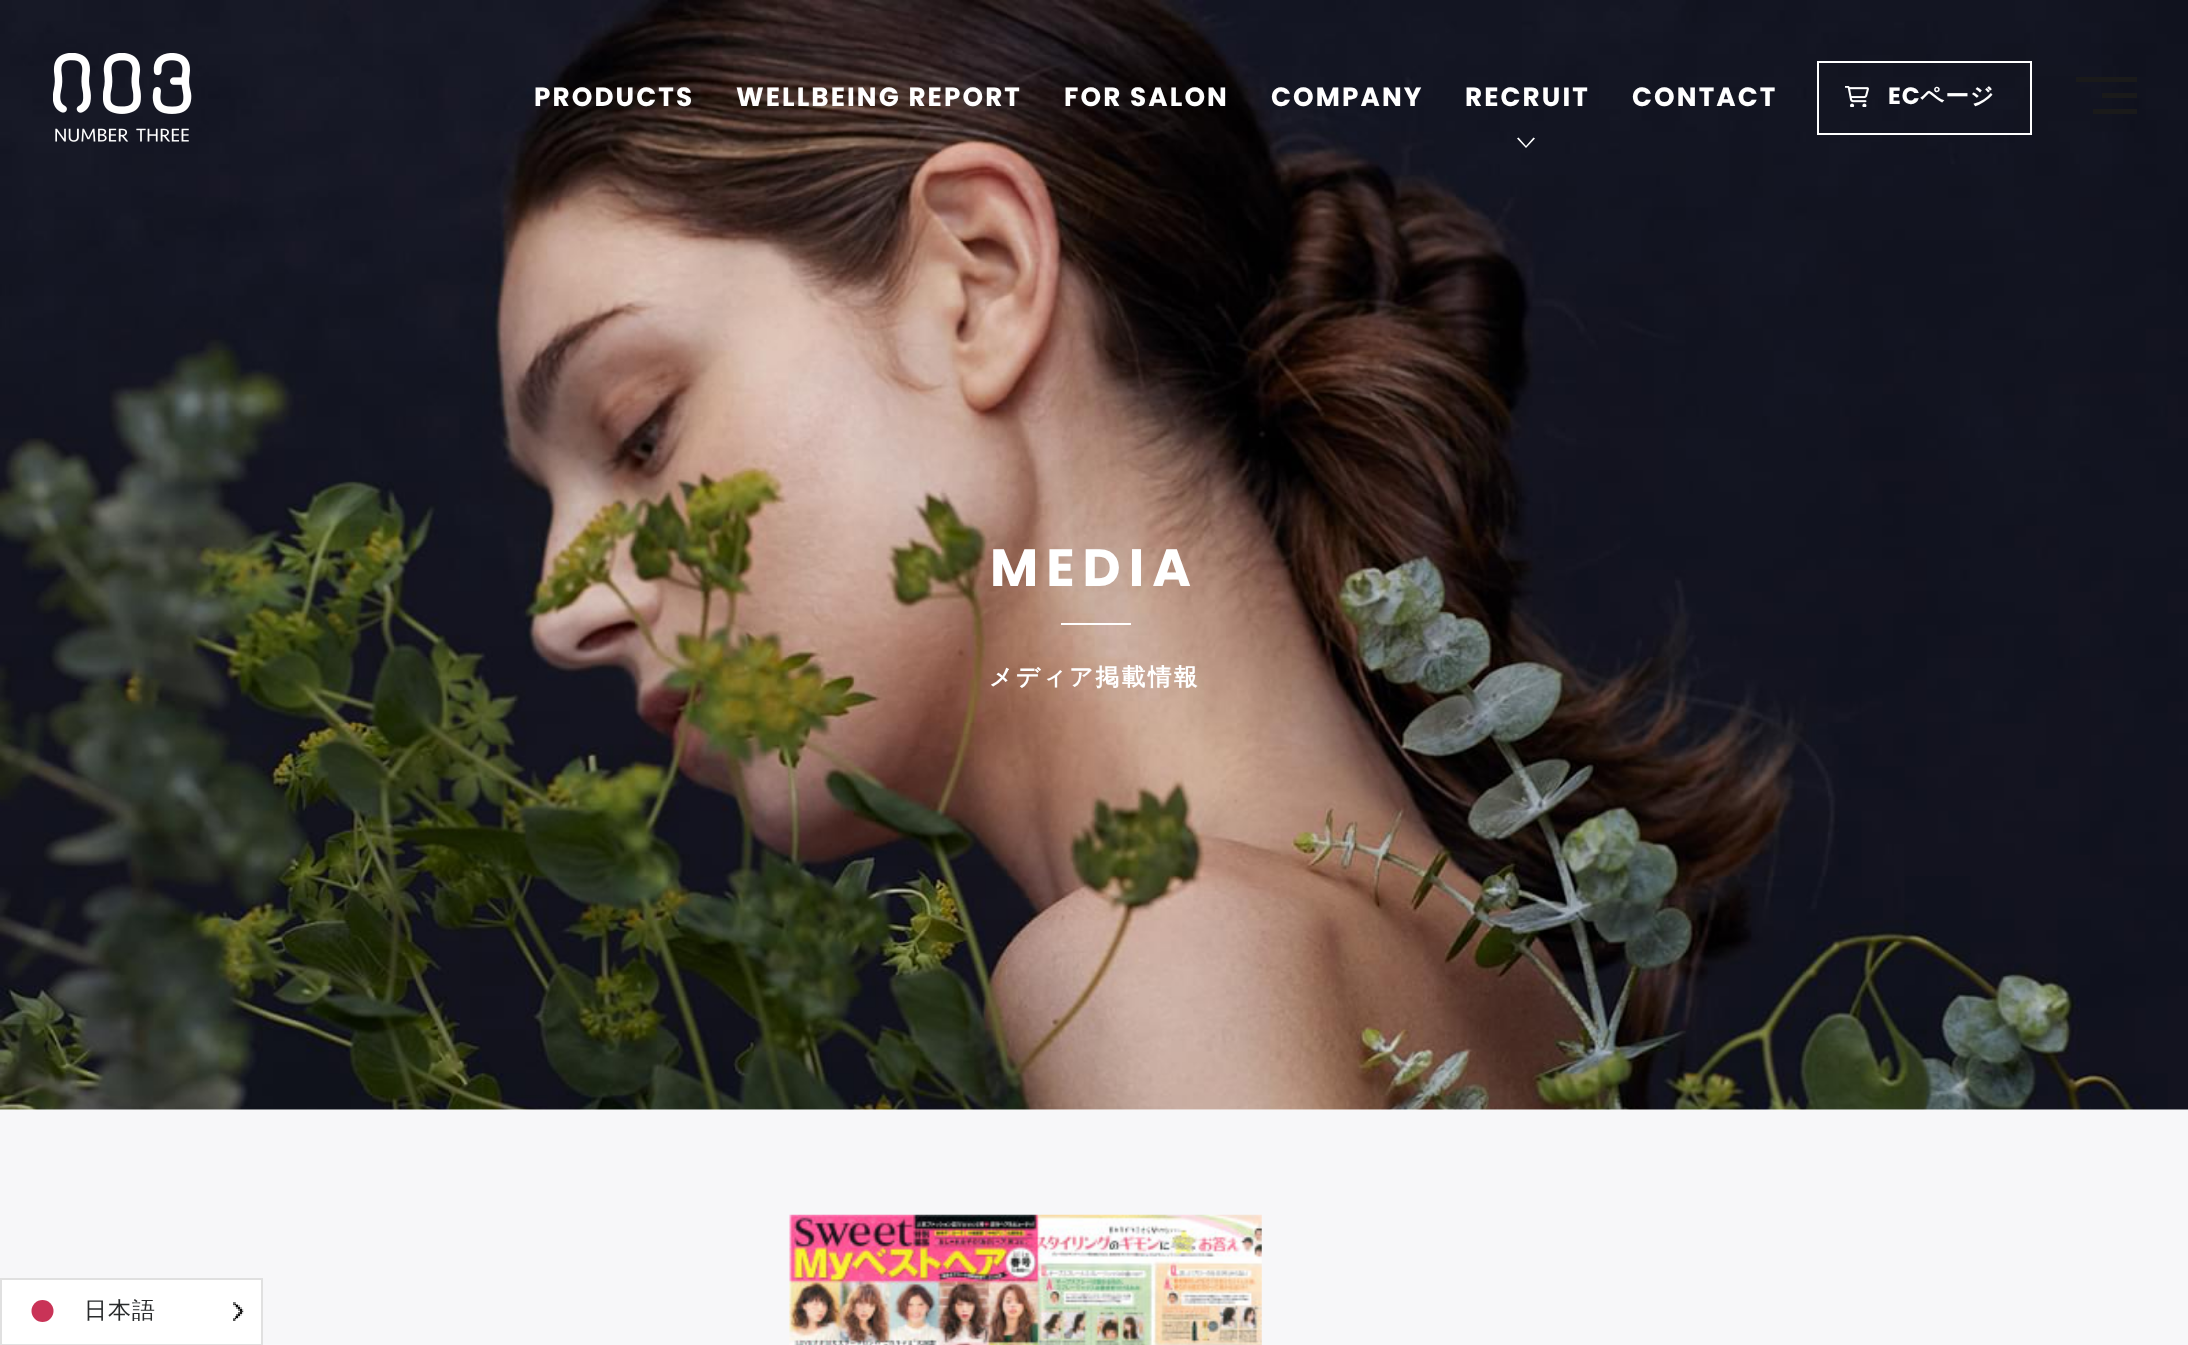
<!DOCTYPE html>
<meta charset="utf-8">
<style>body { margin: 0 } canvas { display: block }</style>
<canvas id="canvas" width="2188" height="1345"></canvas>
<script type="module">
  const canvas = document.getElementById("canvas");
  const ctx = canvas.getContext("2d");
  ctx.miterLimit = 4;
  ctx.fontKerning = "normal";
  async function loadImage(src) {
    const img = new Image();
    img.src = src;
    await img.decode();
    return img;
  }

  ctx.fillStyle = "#ffffff";
  ctx.fillRect(0, 0, 2188, 1345);
  ctx.drawImage(await loadImage("img3.png"), 0, 0, 2188, 1110);
  ctx.drawImage(await loadImage("img1.png"), 53, 53, 139, 89);
  ctx.letterSpacing = "2.1px";
  ctx.font = "bold 26.25px Poppins";
  ctx.fillText("PRODUCTS", 534, 106);
  ctx.fillText("WELLBEING REPORT", 736, 106);
  ctx.fillText("FOR SALON", 1064, 106);
  ctx.fillText("COMPANY", 1271, 106);
  ctx.fillText("RECRUIT", 1465, 106);
  ctx.beginPath();
  ctx.moveTo(1533.5, 137.5);
  ctx.lineTo(1535, 138.5);
  ctx.lineTo(1526, 148);
  ctx.lineTo(1517, 138.5);
  ctx.lineTo(1518.5, 137.5);
  ctx.lineTo(1526, 146);
  ctx.closePath();
  ctx.fill();
  ctx.fillText("CONTACT", 1632, 106);
  ctx.strokeStyle = "#ffffff";
  ctx.lineWidth = 2;
  ctx.strokeRect(1818, 62, 213, 72);
  ctx.drawImage(await loadImage("img2.png"), 1845, 86, 24, 21);
  ctx.letterSpacing = "1px";
  ctx.font = "bold 23.6px Poppins";
  ctx.fillText("EC", 1888, 104);
  ctx.font = "bold 23.6px WenQuanYi Zen Hei";
  ctx.fillText("ページ", 1920, 104);
  ctx.letterSpacing = "8px";
  ctx.font = "bold 52.5px Poppins";
  ctx.fillText("MEDIA", 990, 586);
  ctx.fillRect(1061, 623, 70, 2);
  ctx.letterSpacing = "2.5px";
  ctx.font = "bold 23.6px WenQuanYi Zen Hei";
  ctx.fillText("メディア掲載情報", 989, 685);
  ctx.fillStyle = "#f7f7f9";
  ctx.fillRect(0, 1110, 2188, 235);
  ctx.drawImage(await loadImage("img4.png"), 789, 1214, 473, 131);
  ctx.fillStyle = "#1a1a1a";
  ctx.fillRect(2076, 77, 61, 5);
  ctx.fillRect(2102, 93, 35, 5);
  ctx.fillRect(2093, 109, 44, 5);
  ctx.fillStyle = "#ffffff";
  ctx.beginPath();
  ctx.rect(1, 1279, 261, 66);
  ctx.fill();
  ctx.strokeStyle = "#e0e0e0";
  ctx.stroke();
  ctx.fillStyle = "#c93357";
  ctx.beginPath();
  ctx.arc(42.5, 1311, 11, 0, Math.PI * 2);
  ctx.fill();
  ctx.letterSpacing = "1px";
  ctx.font = "500 23px WenQuanYi Zen Hei";
  ctx.fillStyle = "#292b2c";
  ctx.fillText("日本語", 84, 1318);
  ctx.drawImage(await loadImage("img5.png"), 233, 1302, 11, 19);
</script>
